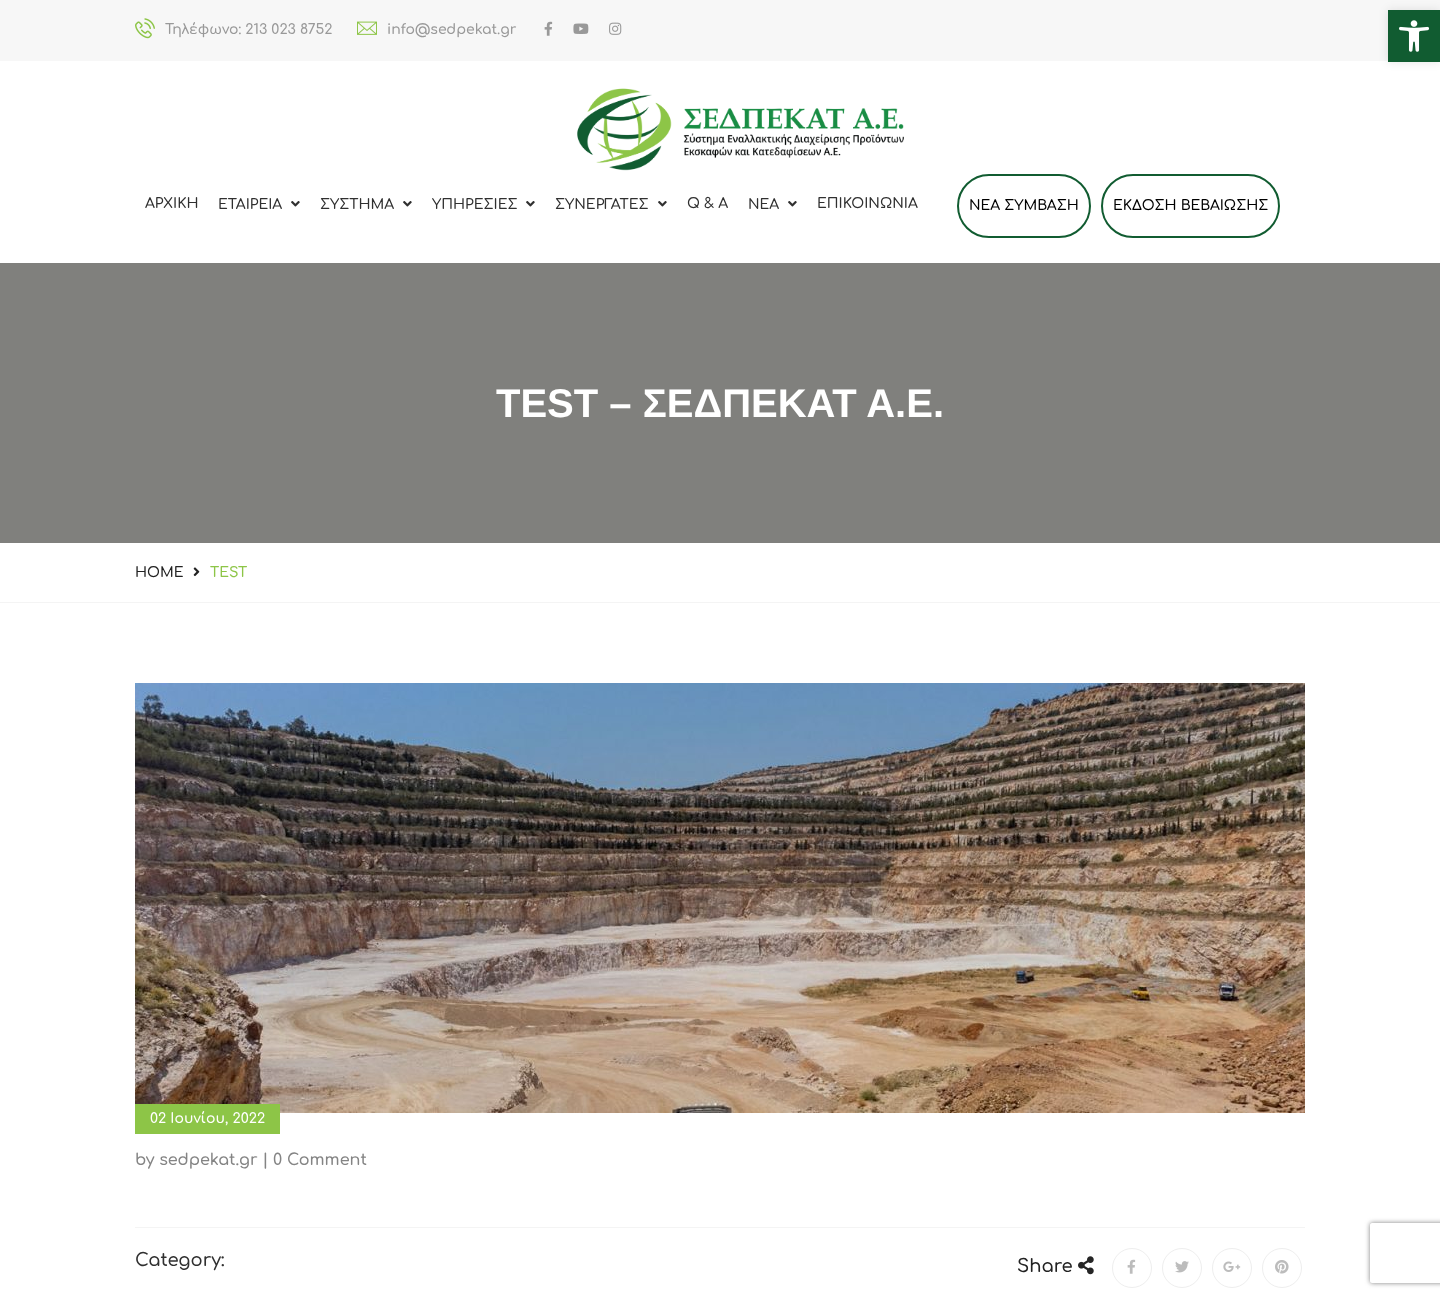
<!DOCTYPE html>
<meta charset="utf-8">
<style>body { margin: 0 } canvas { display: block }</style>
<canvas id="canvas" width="1440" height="1297"></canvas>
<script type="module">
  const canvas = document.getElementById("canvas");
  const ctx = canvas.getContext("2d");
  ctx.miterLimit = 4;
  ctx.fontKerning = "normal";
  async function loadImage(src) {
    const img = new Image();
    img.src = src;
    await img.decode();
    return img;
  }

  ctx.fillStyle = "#ffffff";
  ctx.fillRect(0, 0, 1440, 1297);
  ctx.fillStyle = "#f7f7f7";
  ctx.fillRect(0, 0, 1440, 61);
  ctx.drawImage(await loadImage("img1.png"), 135, 18, 20, 21);
  ctx.font = "600 14px Comfortaa";
  ctx.fillStyle = "#999999";
  ctx.fillText("Τηλέφωνο: 213 023 8752", 165, 34);
  ctx.drawImage(await loadImage("img2.png"), 357, 21, 20, 14);
  ctx.fillText("info@sedpekat.gr", 387, 34);
  ctx.drawImage(await loadImage("img3.png"), 544, 21, 9, 15);
  ctx.drawImage(await loadImage("img4.png"), 573, 23, 16, 11);
  ctx.drawImage(await loadImage("img5.png"), 609, 22, 13, 13);
  ctx.drawImage(await loadImage("img6.png"), 577, 88, 327, 83);
  ctx.fillStyle = "#303030";
  ctx.fillText("ΑΡΧΙΚΗ", 145, 208);
  ctx.fillText("ΕΤΑΙΡΕΙΑ", 218, 209);
  ctx.drawImage(await loadImage("img7.png"), 291, 201, 9, 6);
  ctx.fillText("ΣΥΣΤΗΜΑ", 320, 209);
  ctx.drawImage(await loadImage("img7.png"), 403, 201, 9, 6);
  ctx.fillText("ΥΠΗΡΕΣΙΕΣ", 432, 209);
  ctx.drawImage(await loadImage("img7.png"), 526, 201, 9, 6);
  ctx.fillText("ΣΥΝΕΡΓΑΤΕΣ", 555, 209);
  ctx.drawImage(await loadImage("img7.png"), 658, 201, 9, 6);
  ctx.fillText("Q & A", 687, 208);
  ctx.fillText("ΝΕΑ", 748, 209);
  ctx.drawImage(await loadImage("img7.png"), 788, 201, 9, 6);
  ctx.fillText("ΕΠΙΚΟΙΝΩΝΙΑ", 817, 208);
  ctx.beginPath();
  ctx.roundRect(958, 175, 132, 62, 31);
  ctx.strokeStyle = "#115c31";
  ctx.lineWidth = 2;
  ctx.stroke();
  ctx.fillStyle = "#000000";
  ctx.fillText("ΝΕΑ ΣΥΜΒΑΣΗ", 969, 210);
  ctx.beginPath();
  ctx.roundRect(1102, 175, 177, 62, 31);
  ctx.stroke();
  ctx.fillText("ΕΚΔΟΣΗ ΒΕΒΑΙΩΣΗΣ", 1113, 210);
  ctx.fillStyle = "#80807d";
  ctx.fillRect(0, 263, 1440, 280);
  ctx.font = "bold 40px Liberation Sans";
  ctx.fillStyle = "#ffffff";
  ctx.fillText("TEST – ΣΕΔΠΕΚΑΤ Α.Ε.", 496, 417);
  ctx.fillStyle = "#f4f4f4";
  ctx.fillRect(0, 602, 1440, 1);
  ctx.font = "600 14px Comfortaa";
  ctx.fillStyle = "#222222";
  ctx.fillText("HOME", 135, 577);
  ctx.drawImage(await loadImage("img8.png"), 193, 567, 7, 10);
  ctx.fillStyle = "#8dc547";
  ctx.fillText("TEST", 210, 577);
  ctx.drawImage(await loadImage("img9.png"), 135, 683, 1170, 430);
  ctx.fillRect(135, 1104, 145, 30);
  ctx.fillStyle = "#ffffff";
  ctx.fillText("02 Ιουνίου, 2022", 150, 1123);
  ctx.font = "600 16px Comfortaa";
  ctx.fillStyle = "#848484";
  ctx.fillText("by sedpekat.gr | 0 Comment", 135, 1165);
  ctx.fillStyle = "#f4f4f4";
  ctx.fillRect(135, 1227, 1170, 1);
  ctx.font = "600 18px Comfortaa";
  ctx.fillStyle = "#303030";
  ctx.fillText("Category:", 135, 1266);
  ctx.fillStyle = "#222222";
  ctx.fillText("Share", 1017, 1272);
  ctx.drawImage(await loadImage("img10.png"), 1078, 1256, 16, 19);
  ctx.beginPath();
  ctx.arc(1132, 1268, 19.5, 0, Math.PI * 2);
  ctx.strokeStyle = "#eeeeee";
  ctx.lineWidth = 1;
  ctx.stroke();
  ctx.drawImage(await loadImage("img11.png"), 1127, 1259, 9, 15);
  ctx.beginPath();
  ctx.arc(1182, 1268, 19.5, 0, Math.PI * 2);
  ctx.stroke();
  ctx.drawImage(await loadImage("img12.png"), 1175, 1261, 14, 12);
  ctx.beginPath();
  ctx.arc(1232, 1268, 19.5, 0, Math.PI * 2);
  ctx.stroke();
  ctx.drawImage(await loadImage("img13.png"), 1223, 1261, 18, 11);
  ctx.beginPath();
  ctx.arc(1282, 1268, 19.5, 0, Math.PI * 2);
  ctx.stroke();
  ctx.drawImage(await loadImage("img14.png"), 1275, 1260, 14, 14);
  ctx.fillStyle = "rgba(0, 0, 0, 0.1)";
  ctx.filter = "blur(5px)";
  ctx.beginPath();
  ctx.rect(1388, 10, 52, 52);
  ctx.fill();
  ctx.filter = "none";
  ctx.fillStyle = "#115c31";
  ctx.fillRect(1388, 10, 52, 52);
  ctx.drawImage(await loadImage("img15.png"), 1399, 20, 30, 32);
  ctx.save();
  ctx.beginPath();
  ctx.moveTo(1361, 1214);
  ctx.lineTo(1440, 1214);
  ctx.lineTo(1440, 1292);
  ctx.lineTo(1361, 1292);
  ctx.closePath();
  ctx.moveTo(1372, 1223);
  ctx.lineTo(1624, 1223);
  ctx.bezierCurveTo(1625, 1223, 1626, 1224, 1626, 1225);
  ctx.lineTo(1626, 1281);
  ctx.bezierCurveTo(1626, 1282, 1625, 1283, 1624, 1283);
  ctx.lineTo(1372, 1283);
  ctx.bezierCurveTo(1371, 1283, 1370, 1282, 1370, 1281);
  ctx.lineTo(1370, 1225);
  ctx.bezierCurveTo(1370, 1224, 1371, 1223, 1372, 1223);
  ctx.closePath();
  ctx.clip("evenodd");
  ctx.fillStyle = "#808080";
  ctx.filter = "blur(2.5px)";
  ctx.beginPath();
  ctx.roundRect(1370, 1223, 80, 60, 2);
  ctx.fill();
  ctx.filter = "none";
  ctx.restore();
</script>
